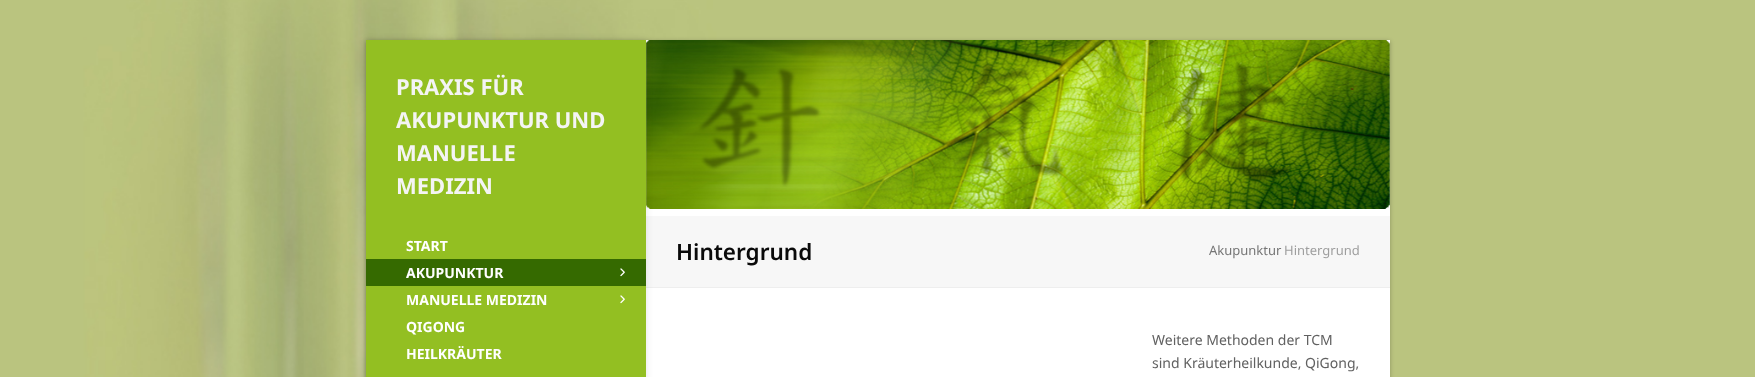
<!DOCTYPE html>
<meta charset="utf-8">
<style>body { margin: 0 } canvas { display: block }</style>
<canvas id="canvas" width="1755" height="377"></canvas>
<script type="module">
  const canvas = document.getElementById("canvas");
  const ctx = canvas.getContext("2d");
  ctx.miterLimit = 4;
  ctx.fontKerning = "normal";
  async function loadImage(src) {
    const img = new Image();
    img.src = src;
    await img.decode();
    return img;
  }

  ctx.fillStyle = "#ffffff";
  ctx.fillRect(0, 0, 1755, 377);
  ctx.drawImage(await loadImage("img1.png"), 0, 0, 1755, 377);
  ctx.fillStyle = "rgba(0, 0, 0, 0.25)";
  ctx.filter = "blur(2px)";
  ctx.beginPath();
  ctx.rect(366, 41, 1024, 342);
  ctx.fill();
  ctx.filter = "none";
  ctx.fillStyle = "#ffffff";
  ctx.fillRect(646, 40, 744, 337);
  ctx.drawImage(await loadImage("img4.png"), 646, 40, 744, 169);
  ctx.fillStyle = "#f7f7f7";
  ctx.fillRect(646, 216, 744, 71);
  ctx.fillStyle = "#eeeeee";
  ctx.fillRect(646, 287, 744, 1);
  ctx.fillStyle = "rgba(0, 0, 0, 0.1)";
  ctx.filter = "blur(3.5px)";
  ctx.beginPath();
  ctx.rect(366, 40, 280, 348);
  ctx.fill();
  ctx.filter = "none";
  ctx.fillStyle = "#93bf22";
  ctx.fillRect(366, 40, 280, 337);
  ctx.font = "bold 22px Noto Sans";
  ctx.fillStyle = "#f4f4f4";
  ctx.fillText("PRAXIS FÜR", 396, 95);
  ctx.fillText("AKUPUNKTUR UND", 396, 128);
  ctx.fillText("MANUELLE", 396, 161);
  ctx.fillText("MEDIZIN", 396, 194);
  ctx.font = "bold 14px Noto Sans";
  ctx.fillStyle = "#ffffff";
  ctx.fillText("START", 406, 251);
  ctx.fillStyle = "#356a00";
  ctx.fillRect(366, 259, 280, 27);
  ctx.fillStyle = "#ffffff";
  ctx.fillText("AKUPUNKTUR", 406, 278);
  ctx.drawImage(await loadImage("img2.png"), 620, 268, 5, 9);
  ctx.fillText("MANUELLE MEDIZIN", 406, 305);
  ctx.drawImage(await loadImage("img3.png"), 620, 295, 5, 9);
  ctx.fillText("QIGONG", 406, 332);
  ctx.fillText("HEILKRÄUTER", 406, 359);
  ctx.font = "600 22.5px Noto Sans";
  ctx.fillStyle = "#0a0a0a";
  ctx.fillText("Hintergrund", 676, 260);
  ctx.font = "13px Noto Sans";
  ctx.fillStyle = "#757575";
  ctx.fillText("Akupunktur", 1209, 255);
  ctx.fillStyle = "#9e9e9e";
  ctx.fillText("Hintergrund", 1284, 255);
  ctx.font = "14px Noto Sans";
  ctx.fillStyle = "#616161";
  ctx.fillText("Weitere Methoden der TCM", 1152, 345);
  ctx.fillText("sind Kräuterheilkunde, QiGong,", 1152, 368);
</script>
